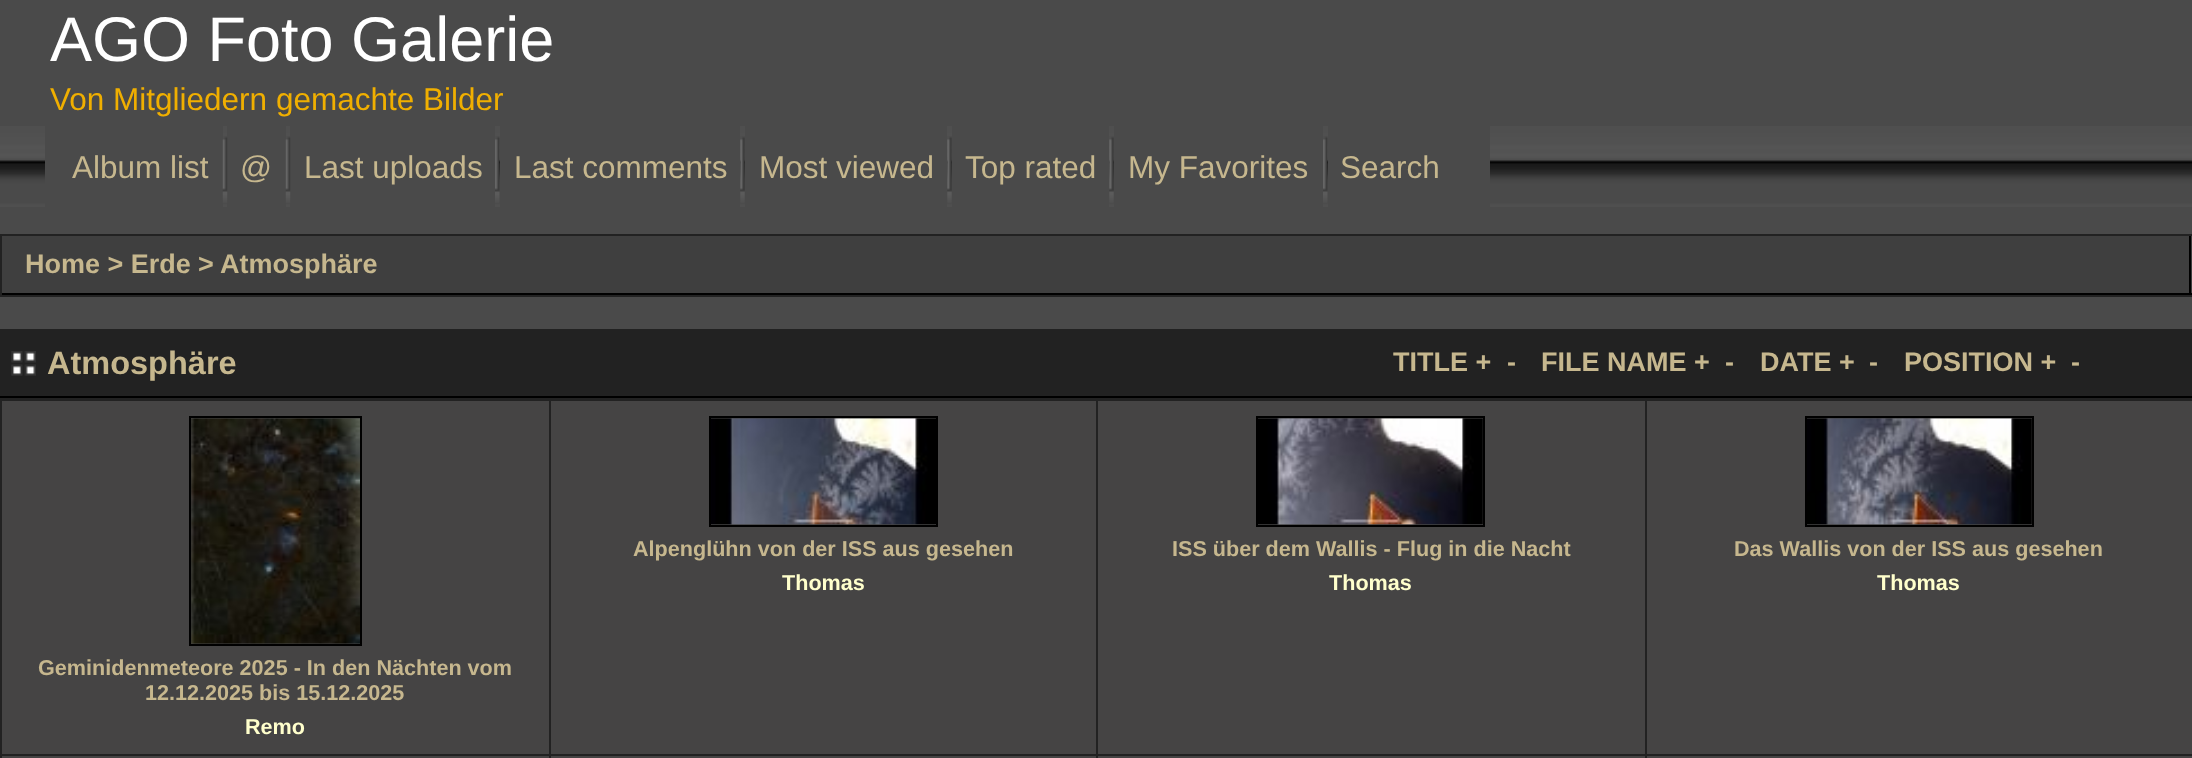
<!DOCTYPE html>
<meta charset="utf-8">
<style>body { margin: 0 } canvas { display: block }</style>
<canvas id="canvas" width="2192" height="758"></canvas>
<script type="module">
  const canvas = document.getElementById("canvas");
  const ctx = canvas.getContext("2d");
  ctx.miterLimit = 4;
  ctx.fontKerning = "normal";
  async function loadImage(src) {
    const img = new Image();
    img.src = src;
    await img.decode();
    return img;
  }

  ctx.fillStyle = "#4a4a4a";
  ctx.fillRect(0, 0, 2192, 758);
  ctx.font = "63px Liberation Sans";
  ctx.fillStyle = "#ffffff";
  ctx.fillText("AGO Foto Galerie", 50, 61);
  ctx.font = "31.5px Liberation Sans";
  ctx.fillStyle = "#f0af00";
  ctx.fillText("Von Mitgliedern gemachte Bilder", 50, 110);
  ctx.drawImage(await loadImage("img1.png"), 0, 126, 2192, 81);
  ctx.fillStyle = "#4a4a4a";
  ctx.fillRect(45, 126, 178, 81);
  ctx.fillStyle = "#c6b78e";
  ctx.fillText("Album list", 72, 178);
  ctx.fillStyle = "#4a4a4a";
  ctx.fillRect(227, 126, 59, 81);
  ctx.drawImage(await loadImage("img2.png"), 222, 136, 6, 67);
  ctx.fillStyle = "#c6b78e";
  ctx.fillText("@", 240, 178);
  ctx.fillStyle = "#4a4a4a";
  ctx.fillRect(290, 126, 205, 81);
  ctx.drawImage(await loadImage("img2.png"), 285, 136, 6, 67);
  ctx.fillStyle = "#c6b78e";
  ctx.fillText("Last uploads", 304, 178);
  ctx.drawImage(await loadImage("img3.png"), 495, 136, 5, 67);
  ctx.fillStyle = "#4a4a4a";
  ctx.fillRect(500, 126, 240, 81);
  ctx.fillStyle = "#c6b78e";
  ctx.fillText("Last comments", 514, 178);
  ctx.drawImage(await loadImage("img4.png"), 740, 136, 5, 67);
  ctx.fillStyle = "#4a4a4a";
  ctx.fillRect(745, 126, 202, 81);
  ctx.fillStyle = "#c6b78e";
  ctx.fillText("Most viewed", 759, 178);
  ctx.drawImage(await loadImage("img4.png"), 947, 136, 5, 67);
  ctx.fillStyle = "#4a4a4a";
  ctx.fillRect(952, 126, 157, 81);
  ctx.fillStyle = "#c6b78e";
  ctx.fillText("Top rated", 965, 178);
  ctx.drawImage(await loadImage("img5.png"), 1109, 136, 5, 67);
  ctx.fillStyle = "#4a4a4a";
  ctx.fillRect(1114, 126, 209, 81);
  ctx.fillStyle = "#c6b78e";
  ctx.fillText("My Favorites", 1128, 178);
  ctx.drawImage(await loadImage("img3.png"), 1323, 136, 5, 67);
  ctx.fillStyle = "#4a4a4a";
  ctx.fillRect(1328, 126, 162, 81);
  ctx.fillStyle = "#c6b78e";
  ctx.fillText("Search", 1340, 178);
  ctx.fillStyle = "#222222";
  ctx.fillRect(0, 234, 2192, 63);
  ctx.fillStyle = "#3f3f3f";
  ctx.fillRect(2, 236, 2190, 57);
  ctx.fillStyle = "#000000";
  ctx.fillRect(2189, 236, 2, 59);
  ctx.fillRect(2, 293, 2190, 2);
  ctx.font = "bold 27px Liberation Sans";
  ctx.fillStyle = "#c6b78e";
  ctx.fillText("Home > Erde", 25, 273);
  ctx.fillText(">", 198, 273);
  ctx.fillText("Atmosphäre", 220, 273);
  ctx.fillStyle = "#222222";
  ctx.fillRect(0, 329, 2192, 67);
  ctx.fillStyle = "#000000";
  ctx.fillRect(0, 396, 2192, 2);
  ctx.drawImage(await loadImage("img6.png"), 11, 351, 25, 25);
  ctx.font = "bold 32.5px Liberation Sans";
  ctx.fillStyle = "#c6b78e";
  ctx.fillText("Atmosphäre", 47, 374);
  ctx.font = "bold 27px Liberation Sans";
  ctx.fillText("TITLE +", 1393, 371);
  ctx.fillText("-", 1507, 371);
  ctx.fillText("FILE NAME +", 1541, 371);
  ctx.fillText("-", 1725, 371);
  ctx.fillText("DATE +", 1760, 371);
  ctx.fillText("-", 1869, 371);
  ctx.fillText("POSITION +", 1904, 371);
  ctx.fillText("-", 2071, 371);
  ctx.fillStyle = "#222222";
  ctx.fillRect(0, 398, 2192, 360);
  ctx.fillStyle = "#454444";
  ctx.fillRect(551, 401, 545, 353);
  ctx.strokeStyle = "#000000";
  ctx.lineWidth = 2;
  ctx.strokeRect(710, 417, 227, 109);
  ctx.drawImage(await loadImage("img7.png"), 711, 418, 225, 107);
  ctx.font = "bold 21.6px Liberation Sans";
  ctx.fillStyle = "#c6b78e";
  ctx.fillText("Alpenglühn von der ISS aus gesehen", 633, 556);
  ctx.fillStyle = "#ffffcc";
  ctx.fillText("Thomas", 782, 590);
  ctx.fillStyle = "#454444";
  ctx.fillRect(1098, 401, 547, 353);
  ctx.strokeRect(1257, 417, 227, 109);
  ctx.drawImage(await loadImage("img8.png"), 1258, 418, 225, 107);
  ctx.fillStyle = "#c6b78e";
  ctx.fillText("ISS über dem Wallis - Flug in die Nacht", 1172, 556);
  ctx.fillStyle = "#ffffcc";
  ctx.fillText("Thomas", 1329, 590);
  ctx.fillStyle = "#454444";
  ctx.fillRect(1647, 401, 545, 353);
  ctx.strokeRect(1806, 417, 227, 109);
  ctx.drawImage(await loadImage("img9.png"), 1807, 418, 225, 107);
  ctx.fillStyle = "#c6b78e";
  ctx.fillText("Das Wallis von der ISS aus gesehen", 1734, 556);
  ctx.fillStyle = "#ffffcc";
  ctx.fillText("Thomas", 1877, 590);
  ctx.fillStyle = "#454444";
  ctx.fillRect(2, 401, 547, 353);
  ctx.strokeRect(190, 417, 171, 228);
  ctx.drawImage(await loadImage("img10.png"), 191, 418, 169, 226);
  ctx.fillStyle = "#c6b78e";
  ctx.fillText("Geminidenmeteore 2025 - In den Nächten vom", 38, 675);
  ctx.fillText("12.12.2025 bis 15.12.2025", 145, 700);
  ctx.fillStyle = "#ffffcc";
  ctx.fillText("Remo", 245, 734);
  ctx.fillStyle = "#454444";
  ctx.fillRect(2, 756, 547, 2);
  ctx.fillRect(551, 756, 545, 2);
  ctx.fillRect(1098, 756, 547, 2);
  ctx.fillRect(1647, 756, 545, 2);
</script>
